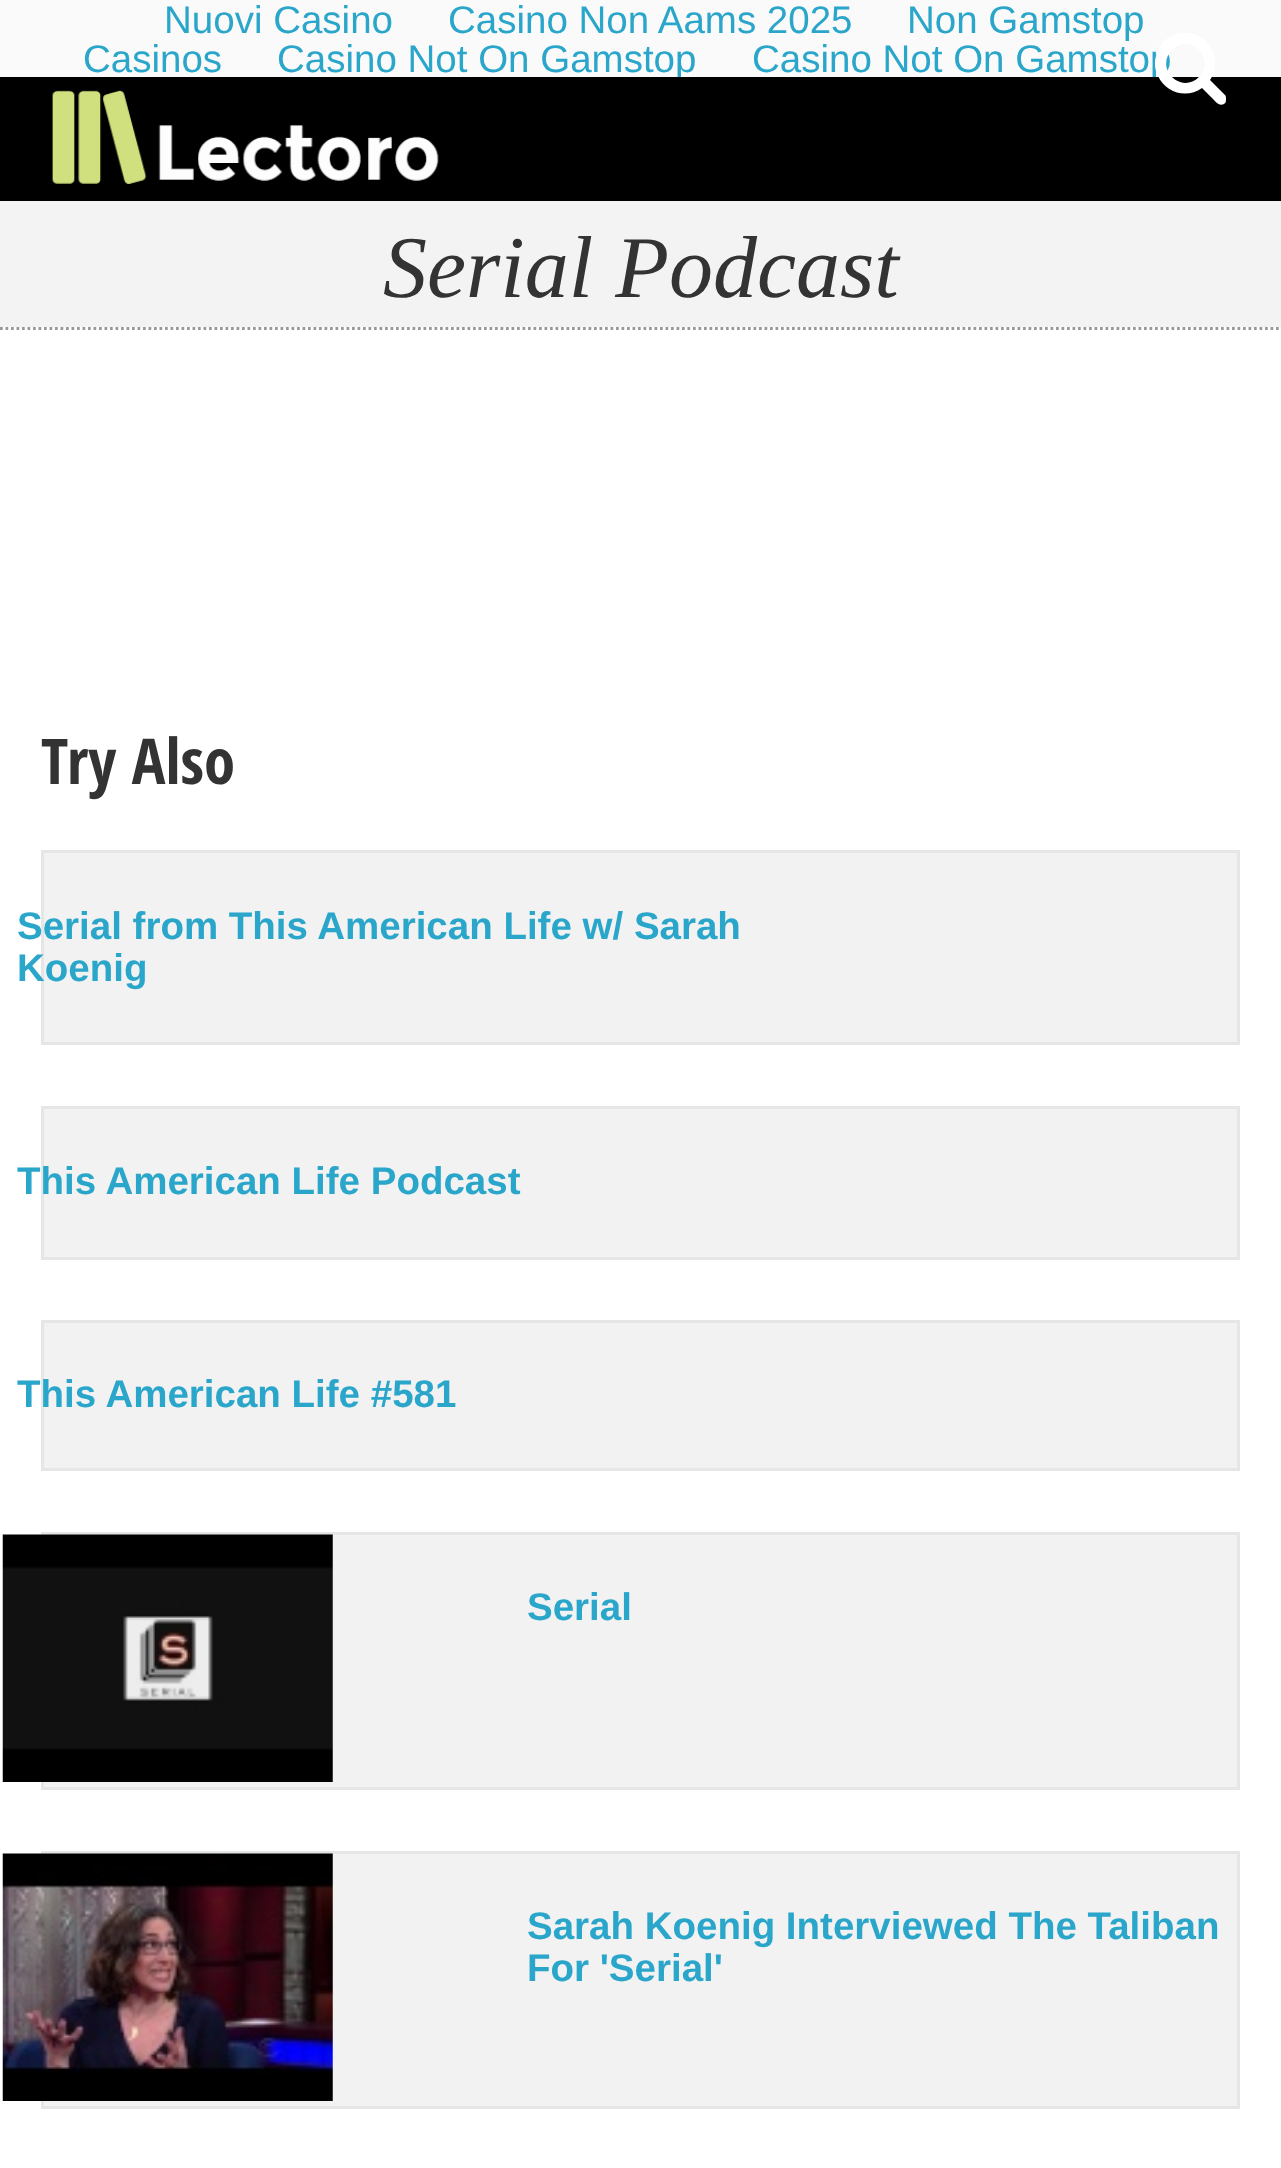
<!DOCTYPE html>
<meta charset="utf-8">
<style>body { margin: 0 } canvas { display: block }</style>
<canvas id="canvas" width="1281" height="2168"></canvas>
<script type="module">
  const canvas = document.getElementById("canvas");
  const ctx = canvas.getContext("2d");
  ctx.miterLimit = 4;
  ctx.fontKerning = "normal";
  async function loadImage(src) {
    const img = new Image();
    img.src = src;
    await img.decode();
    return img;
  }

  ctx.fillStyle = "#fafafa";
  ctx.fillRect(0, 0, 1281, 2168);
  ctx.font = "38.5px Liberation Sans";
  ctx.fillStyle = "#2ba6cb";
  ctx.fillText("Nuovi Casino", 164, 33);
  ctx.fillText("Casino Non Aams 2025", 448, 33);
  ctx.fillText("Non Gamstop", 907, 33);
  ctx.fillText("Casinos", 83, 72);
  ctx.fillText("Casino Not On Gamstop", 277, 72);
  ctx.fillText("Casino Not On Gamstop", 752, 72);
  ctx.fillStyle = "#000000";
  ctx.fillRect(0, 77, 1281, 124);
  ctx.fillStyle = "#ffffff";
  ctx.beginPath();
  ctx.moveTo(1199, 77);
  ctx.bezierCurveTo(1217, 59, 1190, 32, 1172, 50);
  ctx.bezierCurveTo(1154, 68, 1181, 95, 1199, 77);
  ctx.closePath();
  ctx.moveTo(1226, 99);
  ctx.bezierCurveTo(1226, 101, 1226, 103, 1224, 104);
  ctx.bezierCurveTo(1219, 107, 1215, 101, 1212, 98);
  ctx.lineTo(1202, 88);
  ctx.bezierCurveTo(1187, 99, 1166, 93, 1158, 76);
  ctx.bezierCurveTo(1155, 70, 1154, 63, 1156, 56);
  ctx.bezierCurveTo(1163, 26, 1205, 25, 1214, 54);
  ctx.bezierCurveTo(1217, 63, 1215, 73, 1210, 80);
  ctx.lineTo(1225, 95);
  ctx.bezierCurveTo(1226, 96, 1226, 97, 1226, 99);
  ctx.closePath();
  ctx.fill();
  ctx.drawImage(await loadImage("img1.png"), 52, 90, 387, 94);
  ctx.fillStyle = "#f3f3f3";
  ctx.fillRect(0, 201, 1281, 126);
  ctx.font = "italic 88px Liberation Serif";
  ctx.fillStyle = "#333333";
  ctx.fillText("Serial Podcast", 383, 297);
  ctx.fillStyle = "#ffffff";
  ctx.fillRect(0, 327, 1281, 1841);
  ctx.beginPath();
  ctx.moveTo(0, 328.5);
  ctx.lineTo(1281.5, 328.5);
  ctx.strokeStyle = "#999999";
  ctx.lineWidth = 2.8;
  ctx.setLineDash([2.75, 2.75]);
  ctx.stroke();
  ctx.font = "bold 63px Open Sans Condensed";
  ctx.fillStyle = "#333333";
  ctx.fillText("Try Also", 41, 784);
  ctx.fillStyle = "#f2f2f2";
  ctx.beginPath();
  ctx.rect(42.5, 851.5, 1196, 192);
  ctx.fill();
  ctx.strokeStyle = "#e6e6e6";
  ctx.lineWidth = 3;
  ctx.setLineDash([]);
  ctx.stroke();
  ctx.font = "bold 38.5px Liberation Sans";
  ctx.fillStyle = "#2ba6cb";
  ctx.fillText("Serial from This American Life w/ Sarah", 17, 939);
  ctx.fillText("Koenig", 17, 981);
  ctx.fillStyle = "#f2f2f2";
  ctx.beginPath();
  ctx.rect(42.5, 1107.5, 1196, 151);
  ctx.fill();
  ctx.stroke();
  ctx.fillStyle = "#2ba6cb";
  ctx.fillText("This American Life Podcast", 17, 1194);
  ctx.fillStyle = "#f2f2f2";
  ctx.beginPath();
  ctx.rect(42.5, 1321.5, 1196, 148);
  ctx.fill();
  ctx.stroke();
  ctx.fillStyle = "#2ba6cb";
  ctx.fillText("This American Life #581", 17, 1407);
  ctx.fillStyle = "#f2f2f2";
  ctx.beginPath();
  ctx.rect(42.5, 1533.5, 1196, 255);
  ctx.fill();
  ctx.stroke();
  ctx.drawImage(await loadImage("img2.png"), 2, 1534, 331, 248);
  ctx.fillStyle = "#2ba6cb";
  ctx.fillText("Serial", 527, 1620);
  ctx.fillStyle = "#f2f2f2";
  ctx.beginPath();
  ctx.rect(42.5, 1852.5, 1196, 255);
  ctx.fill();
  ctx.stroke();
  ctx.drawImage(await loadImage("img3.png"), 2, 1853, 331, 248);
  ctx.fillStyle = "#2ba6cb";
  ctx.fillText("Sarah Koenig Interviewed The Taliban", 527, 1939);
  ctx.fillText("For 'Serial'", 527, 1981);
</script>
